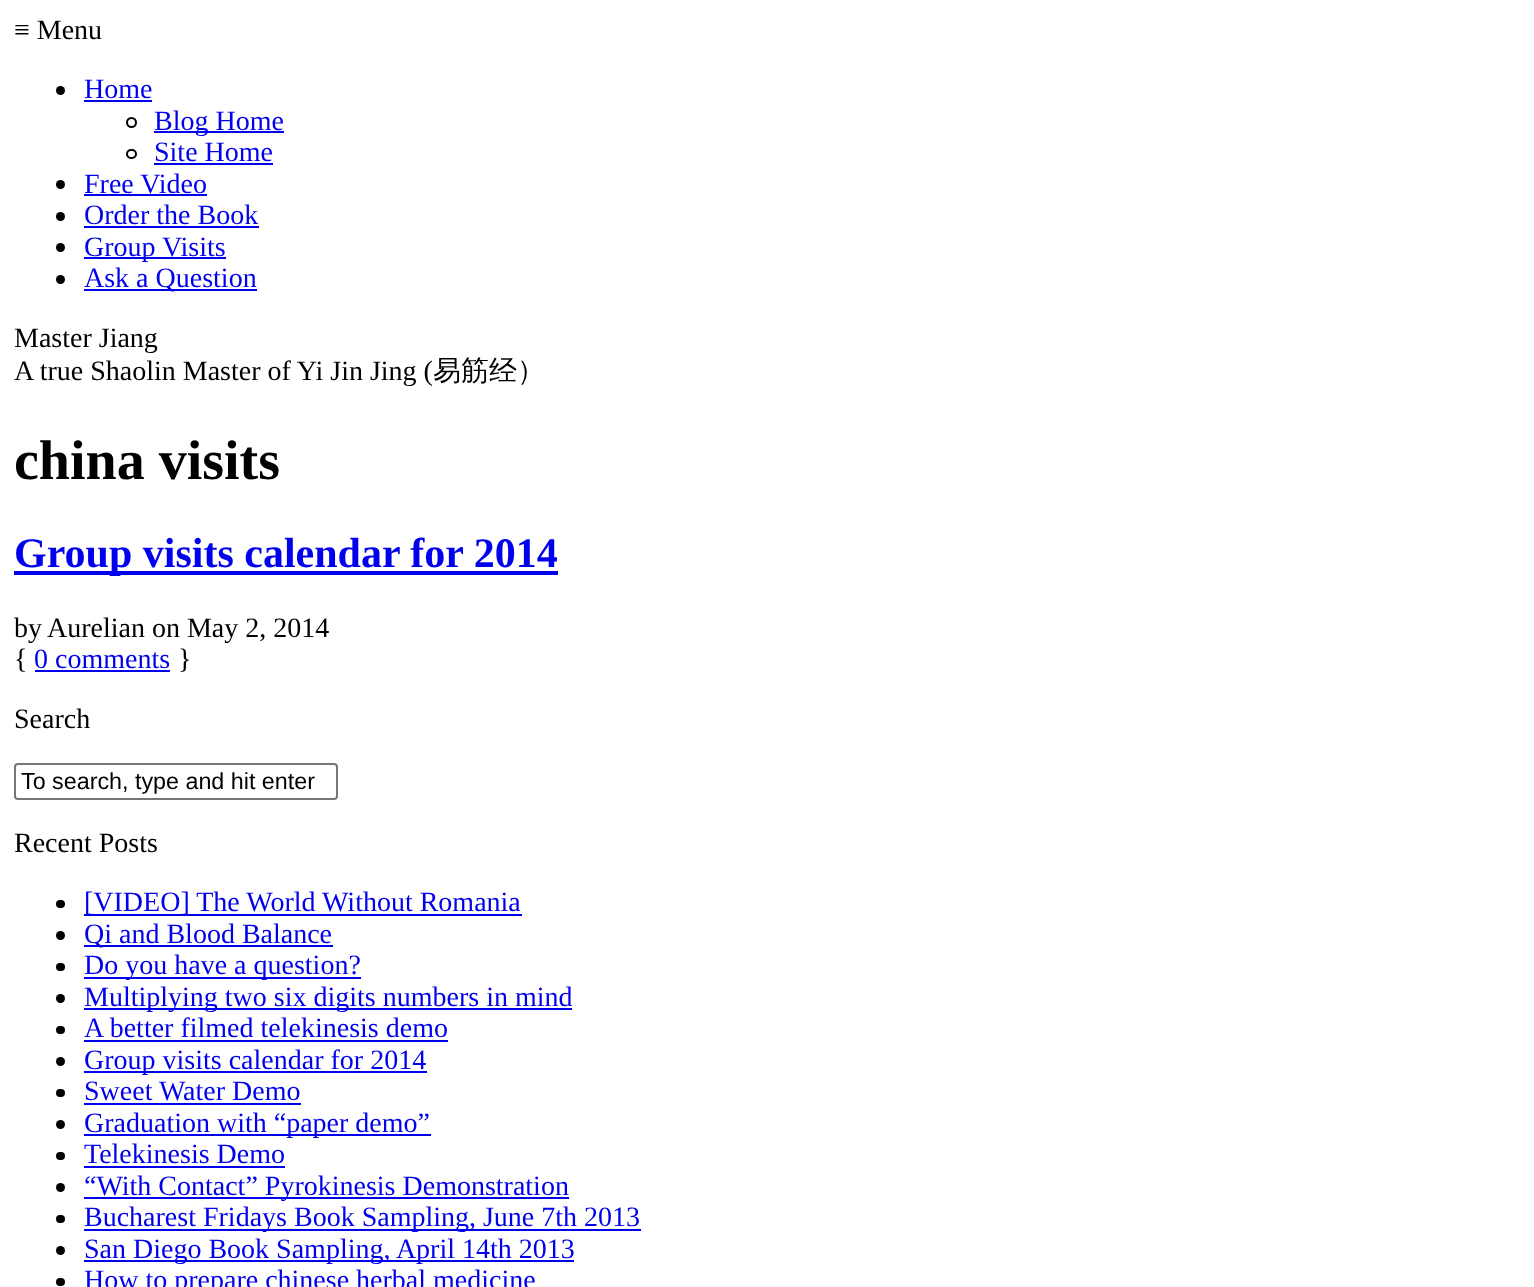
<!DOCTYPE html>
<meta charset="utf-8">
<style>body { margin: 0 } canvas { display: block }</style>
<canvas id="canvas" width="1534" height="1287"></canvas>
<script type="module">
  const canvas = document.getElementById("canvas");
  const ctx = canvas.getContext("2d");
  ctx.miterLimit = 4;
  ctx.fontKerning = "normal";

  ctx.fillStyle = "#ffffff";
  ctx.fillRect(0, 0, 1534, 1287);
  ctx.font = "28px Liberation Serif";
  ctx.fillStyle = "#000000";
  ctx.fillText("≡ Menu", 14, 39);
  ctx.beginPath();
  ctx.arc(60.5, 90.5, 4.5, 0, Math.PI * 2);
  ctx.fill();
  ctx.fillStyle = "#0000ee";
  ctx.fillText("Home", 84, 98);
  ctx.fillRect(84, 100, 68, 2);
  ctx.beginPath();
  ctx.arc(131.5, 122.5, 4.5, 0, Math.PI * 2);
  ctx.strokeStyle = "#000000";
  ctx.lineWidth = 2;
  ctx.stroke();
  ctx.fillRect(154, 131, 130, 2);
  ctx.fillText("Blog Home", 154, 130);
  ctx.beginPath();
  ctx.roundRect(127, 150, 9, 8, 4);
  ctx.stroke();
  ctx.fillText("Site Home", 154, 161);
  ctx.fillRect(154, 163, 119, 2);
  ctx.fillStyle = "#000000";
  ctx.beginPath();
  ctx.arc(60.5, 184.5, 4.5, 0, Math.PI * 2);
  ctx.fill();
  ctx.fillStyle = "#0000ee";
  ctx.fillText("Free Video", 84, 193);
  ctx.fillRect(84, 194, 123, 2);
  ctx.fillStyle = "#000000";
  ctx.beginPath();
  ctx.arc(60.5, 216.5, 4.5, 0, Math.PI * 2);
  ctx.fill();
  ctx.fillStyle = "#0000ee";
  ctx.fillText("Order the Book", 84, 224);
  ctx.fillRect(84, 226, 175, 2);
  ctx.fillStyle = "#000000";
  ctx.beginPath();
  ctx.arc(60.5, 247.5, 4.5, 0, Math.PI * 2);
  ctx.fill();
  ctx.fillStyle = "#0000ee";
  ctx.fillRect(84, 257, 142, 2);
  ctx.fillText("Group Visits", 84, 256);
  ctx.fillStyle = "#000000";
  ctx.beginPath();
  ctx.arc(60.5, 279.5, 4.5, 0, Math.PI * 2);
  ctx.fill();
  ctx.fillStyle = "#0000ee";
  ctx.fillRect(84, 289, 173, 2);
  ctx.fillText("Ask a Question", 84, 287);
  ctx.fillStyle = "#000000";
  ctx.fillText("Master Jiang", 14, 347);
  ctx.fillText("A true Shaolin Master of Yi Jin Jing (", 14, 380);
  ctx.font = "500 28px WenQuanYi Zen Hei";
  ctx.fillText("易筋经）", 433, 380);
  ctx.font = "bold 56px Liberation Serif";
  ctx.fillText("china visits", 14, 479);
  ctx.fillStyle = "#0000ee";
  ctx.fillRect(14, 571, 544, 4);
  ctx.font = "bold 42px Liberation Serif";
  ctx.fillText("Group visits calendar for 2014", 14, 567);
  ctx.font = "28px Liberation Serif";
  ctx.fillStyle = "#000000";
  ctx.fillText("by", 14, 637);
  ctx.fillText("Aurelian on May 2, 2014", 47, 637);
  ctx.fillText("{", 14, 668);
  ctx.fillStyle = "#0000ee";
  ctx.fillText("0 comments", 34, 668);
  ctx.fillRect(35, 670, 135, 2);
  ctx.fillStyle = "#000000";
  ctx.fillText("}", 178, 668);
  ctx.fillText("Search", 14, 728);
  ctx.beginPath();
  ctx.roundRect(15, 764, 322, 35, 3);
  ctx.strokeStyle = "#767676";
  ctx.stroke();
  ctx.font = "23.3px Liberation Sans";
  ctx.fillText("To search, type and hit enter", 21, 789);
  ctx.font = "28px Liberation Serif";
  ctx.fillText("Recent Posts", 14, 852);
  ctx.beginPath();
  ctx.roundRect(56, 900, 9, 8, 4);
  ctx.fill();
  ctx.fillStyle = "#0000ee";
  ctx.fillRect(84, 914, 438, 2);
  ctx.fillText("[VIDEO] The World Without Romania", 84, 911);
  ctx.fillStyle = "#000000";
  ctx.beginPath();
  ctx.arc(60.5, 935.5, 4.5, 0, Math.PI * 2);
  ctx.fill();
  ctx.fillStyle = "#0000ee";
  ctx.fillRect(84, 945, 249, 2);
  ctx.fillText("Qi and Blood Balance", 84, 943);
  ctx.fillStyle = "#000000";
  ctx.beginPath();
  ctx.roundRect(56, 963, 9, 8, 4);
  ctx.fill();
  ctx.fillStyle = "#0000ee";
  ctx.fillRect(84, 977, 277, 2);
  ctx.fillText("Do you have a question?", 84, 974);
  ctx.fillStyle = "#000000";
  ctx.beginPath();
  ctx.arc(60.5, 998.5, 4.5, 0, Math.PI * 2);
  ctx.fill();
  ctx.fillStyle = "#0000ee";
  ctx.fillRect(84, 1008, 488, 2);
  ctx.fillText("Multiplying two six digits numbers in mind", 84, 1006);
  ctx.fillStyle = "#000000";
  ctx.beginPath();
  ctx.roundRect(56, 1026, 9, 8, 4);
  ctx.fill();
  ctx.fillStyle = "#0000ee";
  ctx.fillText("A better filmed telekinesis demo", 84, 1037);
  ctx.fillRect(84, 1040, 364, 2);
  ctx.fillStyle = "#000000";
  ctx.beginPath();
  ctx.arc(60.5, 1061.5, 4.5, 0, Math.PI * 2);
  ctx.fill();
  ctx.fillStyle = "#0000ee";
  ctx.fillRect(84, 1071, 343, 2);
  ctx.fillText("Group visits calendar for 2014", 84, 1069);
  ctx.fillStyle = "#000000";
  ctx.beginPath();
  ctx.roundRect(56, 1089, 9, 8, 4);
  ctx.fill();
  ctx.fillStyle = "#0000ee";
  ctx.fillText("Sweet Water Demo", 84, 1100);
  ctx.fillRect(84, 1103, 217, 2);
  ctx.fillStyle = "#000000";
  ctx.beginPath();
  ctx.arc(60.5, 1124.5, 4.5, 0, Math.PI * 2);
  ctx.fill();
  ctx.fillStyle = "#0000ee";
  ctx.fillRect(84, 1134, 347, 2);
  ctx.fillText("Graduation with “paper demo”", 84, 1132);
  ctx.fillStyle = "#000000";
  ctx.beginPath();
  ctx.roundRect(56, 1152, 9, 8, 4);
  ctx.fill();
  ctx.fillStyle = "#0000ee";
  ctx.fillText("Telekinesis Demo", 84, 1163);
  ctx.fillRect(84, 1166, 201, 2);
  ctx.fillStyle = "#000000";
  ctx.beginPath();
  ctx.arc(60.5, 1187.5, 4.5, 0, Math.PI * 2);
  ctx.fill();
  ctx.fillStyle = "#0000ee";
  ctx.fillRect(84, 1197, 485, 2);
  ctx.fillText("“With Contact” Pyrokinesis Demonstration", 84, 1195);
  ctx.fillStyle = "#000000";
  ctx.beginPath();
  ctx.roundRect(56, 1215, 9, 8, 4);
  ctx.fill();
  ctx.fillStyle = "#0000ee";
  ctx.fillRect(84, 1229, 557, 2);
  ctx.fillText("Bucharest Fridays Book Sampling, June 7th 2013", 84, 1226);
  ctx.fillStyle = "#000000";
  ctx.beginPath();
  ctx.arc(60.5, 1250.5, 4.5, 0, Math.PI * 2);
  ctx.fill();
  ctx.fillStyle = "#0000ee";
  ctx.fillRect(84, 1260, 490, 2);
  ctx.fillText("San Diego Book Sampling, April 14th 2013", 84, 1258);
  ctx.fillStyle = "#000000";
  ctx.beginPath();
  ctx.roundRect(56, 1278, 9, 8, 4);
  ctx.fill();
  ctx.fillStyle = "#0000ee";
  ctx.fillText("How to prepare chinese herbal medicine", 84, 1289);
</script>
